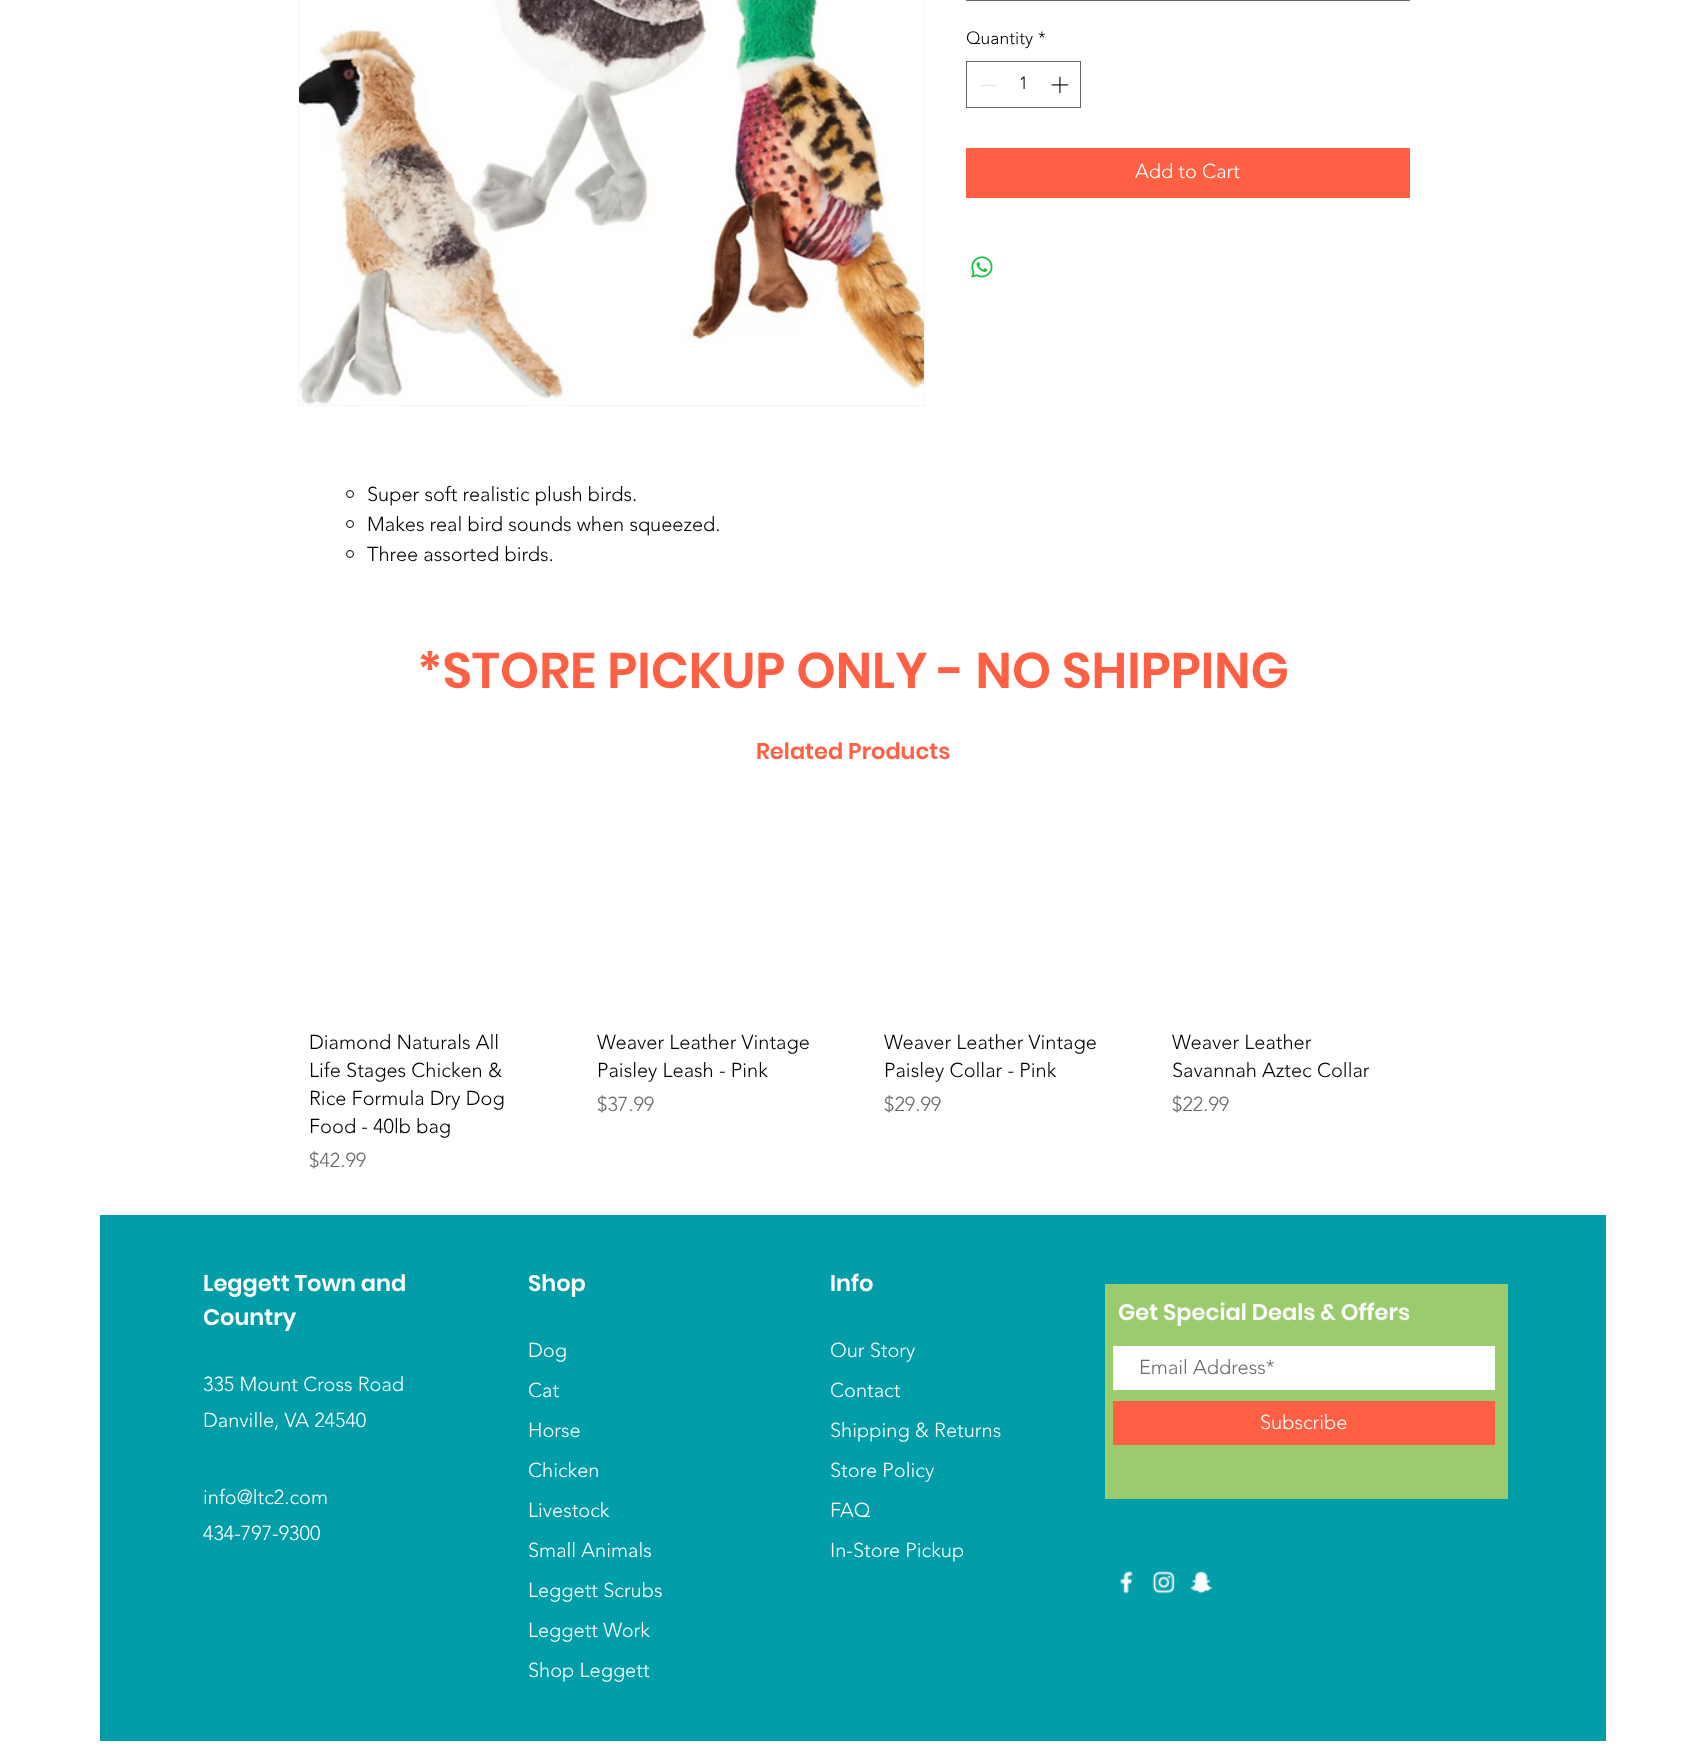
<!DOCTYPE html>
<meta charset="utf-8">
<style>body { margin: 0 } canvas { display: block }</style>
<canvas id="canvas" width="1706" height="1748"></canvas>
<script type="module">
  const canvas = document.getElementById("canvas");
  const ctx = canvas.getContext("2d");
  ctx.miterLimit = 4;
  ctx.fontKerning = "normal";
  async function loadImage(src) {
    const img = new Image();
    img.src = src;
    await img.decode();
    return img;
  }

  ctx.fillStyle = "#ffffff";
  ctx.fillRect(0, 0, 1706, 1748);
  ctx.strokeStyle = "#666666";
  ctx.strokeRect(966.5, -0.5, 443, 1);
  ctx.font = "300 17.5px 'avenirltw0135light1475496'";
  ctx.fillStyle = "#000000";
  ctx.fillText("Quantity", 966, 44);
  ctx.fillText("*", 1038, 44);
  ctx.strokeRect(966.5, 61.5, 114, 46);
  ctx.fillStyle = "#e3e3e3";
  ctx.fillRect(981, 85, 16, 1);
  ctx.fillStyle = "#000000";
  ctx.fillText("1", 1019, 89);
  ctx.drawImage(await loadImage("img1.png"), 1051, 76, 18, 18);
  ctx.fillStyle = "#ff5f42";
  ctx.fillRect(966, 148, 444, 50);
  ctx.font = "300 20px 'avenirltw0135light1475496'";
  ctx.fillStyle = "#ffffff";
  ctx.fillText("Add to Cart", 1135, 178);
  ctx.drawImage(await loadImage("img2.png"), 971, 256, 22, 22);
  ctx.strokeStyle = "#f5f5f5";
  ctx.strokeRect(298.5, -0.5, 626, 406);
  ctx.drawImage(await loadImage("img3.png"), 299, 0, 625, 405);
  ctx.beginPath();
  ctx.arc(350, 494, 3.5, 0, Math.PI * 2);
  ctx.strokeStyle = "#000000";
  ctx.stroke();
  ctx.fillStyle = "#000000";
  ctx.fillText("Super soft realistic plush birds.", 367, 501);
  ctx.beginPath();
  ctx.arc(350, 524, 3.5, 0, Math.PI * 2);
  ctx.stroke();
  ctx.fillText("Makes real bird sounds when squeezed.", 367, 531);
  ctx.beginPath();
  ctx.arc(350, 554, 3.5, 0, Math.PI * 2);
  ctx.stroke();
  ctx.fillText("Three assorted birds.", 367, 561);
  ctx.font = "600 50px Poppins";
  ctx.fillStyle = "#ff5f42";
  ctx.fillText("*STORE PICKUP ONLY - NO SHIPPING", 417, 688);
  ctx.font = "600 22.5px Poppins";
  ctx.fillText("Related Products", 756, 759);
  ctx.font = "300 20px 'avenirltw0135light1475496'";
  ctx.fillStyle = "#000000";
  ctx.fillText("Diamond Naturals All", 309, 1049);
  ctx.fillText("Life Stages Chicken &", 309, 1077);
  ctx.fillText("Rice Formula Dry Dog", 309, 1105);
  ctx.fillText("Food - 40lb bag", 309, 1133);
  ctx.fillStyle = "#6b6b6a";
  ctx.fillText("$42.99", 309, 1167);
  ctx.fillStyle = "#000000";
  ctx.fillText("Weaver Leather Vintage", 597, 1049);
  ctx.fillText("Paisley Leash - Pink", 597, 1077);
  ctx.fillStyle = "#6b6b6a";
  ctx.fillText("$37.99", 597, 1111);
  ctx.fillStyle = "#000000";
  ctx.fillText("Weaver Leather Vintage", 884, 1049);
  ctx.fillText("Paisley Collar - Pink", 884, 1077);
  ctx.fillStyle = "#6b6b6a";
  ctx.fillText("$29.99", 884, 1111);
  ctx.fillStyle = "#000000";
  ctx.fillText("Weaver Leather", 1172, 1049);
  ctx.fillText("Savannah Aztec Collar", 1172, 1077);
  ctx.fillStyle = "#6b6b6a";
  ctx.fillText("$22.99", 1172, 1111);
  ctx.fillStyle = "#019eaa";
  ctx.fillRect(100, 1215, 1506, 526);
  ctx.font = "600 22.5px Poppins";
  ctx.fillStyle = "#ffffff";
  ctx.fillText("Leggett Town and", 203, 1291);
  ctx.fillText("Country", 203, 1325);
  ctx.font = "300 20px 'avenirltw0135light1475496'";
  ctx.fillText("335 Mount Cross Road", 203, 1391);
  ctx.fillText("Danville, VA 24540", 203, 1427);
  ctx.fillText("info@ltc2.com", 203, 1504);
  ctx.fillText("434-797-9300", 203, 1540);
  ctx.font = "600 22.5px Poppins";
  ctx.fillText("Shop", 528, 1291);
  ctx.font = "300 20px 'avenirltw0135light1475496'";
  ctx.fillText("Dog", 528, 1357);
  ctx.fillText("Cat", 528, 1397);
  ctx.fillText("Horse", 528, 1437);
  ctx.fillText("Chicken", 528, 1477);
  ctx.fillText("Livestock", 528, 1517);
  ctx.fillText("Small Animals", 528, 1557);
  ctx.fillText("Leggett Scrubs", 528, 1597);
  ctx.fillText("Leggett Work", 528, 1637);
  ctx.fillText("Shop Leggett", 528, 1677);
  ctx.font = "600 22.5px Poppins";
  ctx.fillText("Info", 830, 1291);
  ctx.font = "300 20px 'avenirltw0135light1475496'";
  ctx.fillText("Our Story", 830, 1357);
  ctx.fillText("Contact", 830, 1397);
  ctx.fillText("Shipping & Returns", 830, 1437);
  ctx.fillText("Store Policy", 830, 1477);
  ctx.fillText("FAQ", 830, 1517);
  ctx.fillText("In-Store Pickup", 830, 1557);
  ctx.fillStyle = "#9bcb6c";
  ctx.fillRect(1105, 1284, 403, 215);
  ctx.font = "600 22.5px Poppins";
  ctx.fillStyle = "#ffffff";
  ctx.fillText("Get Special Deals & Offers", 1118, 1320);
  ctx.fillRect(1113, 1346, 382, 44);
  ctx.font = "300 20px 'avenirltw0135light1475496'";
  ctx.fillStyle = "#6b6b6a";
  ctx.fillText("Email Address*", 1139, 1374);
  ctx.fillStyle = "#ff5f42";
  ctx.fillRect(1113, 1401, 382, 44);
  ctx.fillStyle = "#ffffff";
  ctx.fillText("Subscribe", 1260, 1429);
  ctx.drawImage(await loadImage("img4.png"), 1120, 1571, 13, 23);
  ctx.drawImage(await loadImage("img5.png"), 1152, 1571, 23, 23);
  ctx.drawImage(await loadImage("img6.png"), 1190, 1571, 23, 23);
</script>
